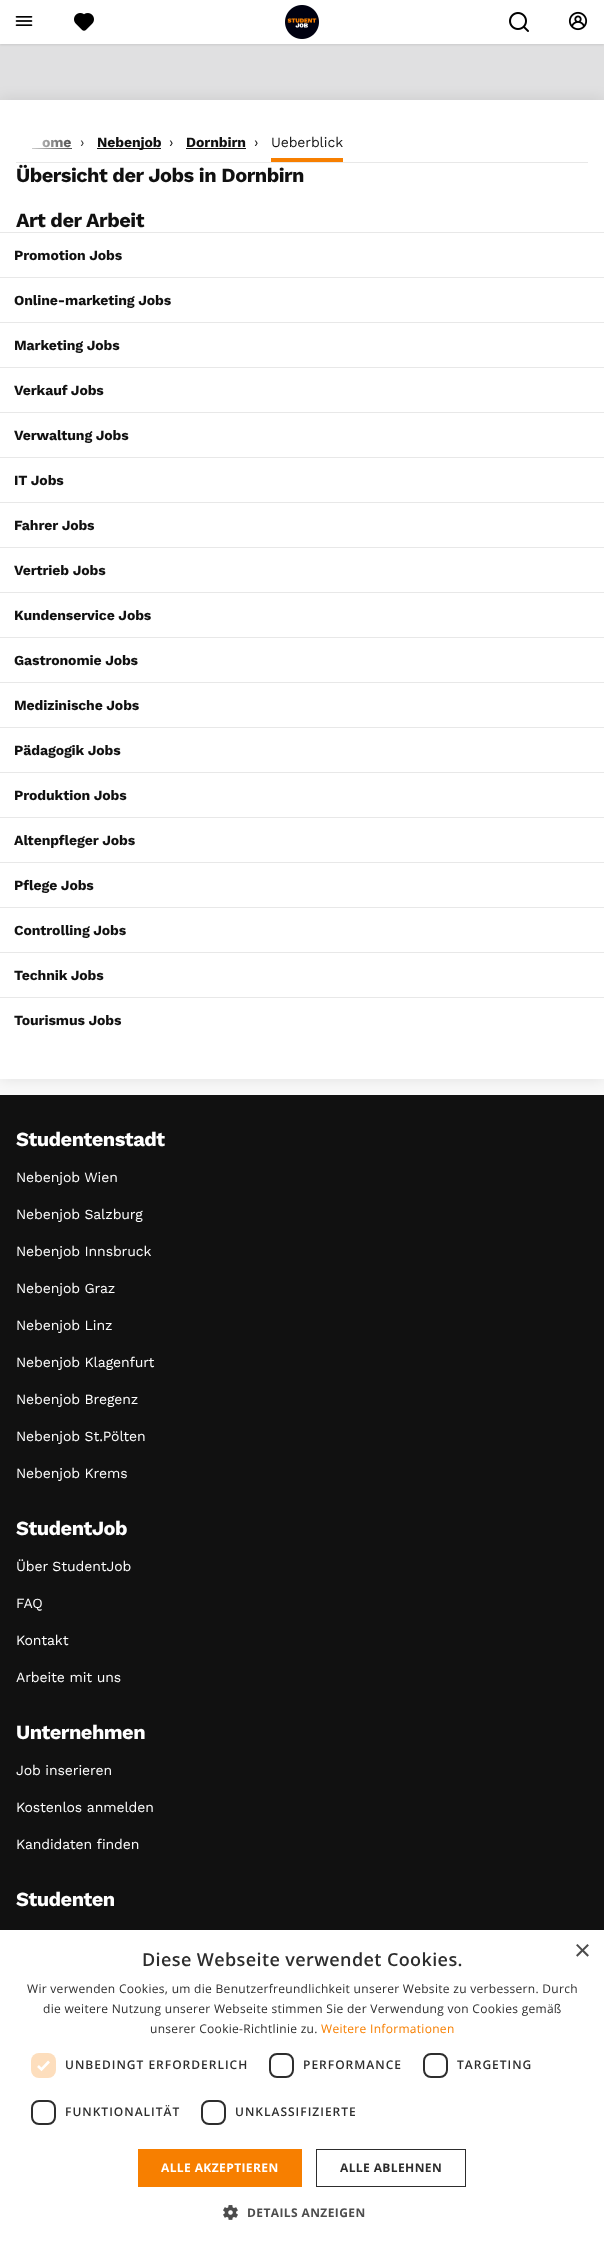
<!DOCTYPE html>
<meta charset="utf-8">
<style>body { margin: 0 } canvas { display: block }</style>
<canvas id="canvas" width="604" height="2246"></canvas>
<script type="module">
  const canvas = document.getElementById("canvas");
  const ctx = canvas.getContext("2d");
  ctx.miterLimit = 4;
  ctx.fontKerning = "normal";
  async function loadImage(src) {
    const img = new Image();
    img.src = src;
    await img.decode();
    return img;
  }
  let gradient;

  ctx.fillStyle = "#f9f9f9";
  ctx.fillRect(0, 0, 604, 2246);
  ctx.fillStyle = "#e0e0e1";
  ctx.fillRect(0, 44, 604, 56);
  ctx.fillStyle = "rgba(0, 0, 0, 0.1)";
  ctx.filter = "blur(1px)";
  ctx.beginPath();
  ctx.rect(0, 1, 604, 44);
  ctx.fill();
  ctx.filter = "none";
  ctx.fillStyle = "#ffffff";
  ctx.fillRect(0, 0, 604, 44);
  ctx.drawImage(await loadImage("img1.png"), 15, 16, 18, 10);
  ctx.drawImage(await loadImage("img2.png"), 74, 13, 20, 18);
  ctx.drawImage(await loadImage("img3.png"), 285, 5, 34, 34);
  ctx.drawImage(await loadImage("img4.png"), 509, 12, 20, 20);
  ctx.drawImage(await loadImage("img5.png"), 568, 11, 20, 20);
  ctx.fillStyle = "#111111";
  ctx.fillRect(0, 1095, 604, 835);
  ctx.fillStyle = "rgba(0, 0, 0, 0.1)";
  ctx.filter = "blur(7.5px)";
  ctx.beginPath();
  ctx.rect(0, 100, 604, 979);
  ctx.fill();
  ctx.filter = "none";
  ctx.fillStyle = "#ffffff";
  ctx.fillRect(0, 100, 604, 979);
  ctx.fillStyle = "#e8e8e8";
  ctx.fillRect(16, 162, 572, 1);
  ctx.letterSpacing = "-0.1px";
  ctx.font = "bold 14px Work Sans";
  ctx.fillStyle = "#111111";
  ctx.fillText("ome", 42, 147);
  ctx.fillRect(32, 148, 40, 1);
  ctx.font = "14px Work Sans";
  ctx.fillText("›", 80, 147);
  ctx.fillRect(97, 148, 64, 1);
  ctx.font = "bold 14px Work Sans";
  ctx.fillText("Nebenjob", 97, 147);
  ctx.font = "14px Work Sans";
  ctx.fillText("›", 169, 147);
  ctx.font = "bold 14px Work Sans";
  ctx.fillText("Dornbirn", 186, 147);
  ctx.fillRect(186, 148, 60, 1);
  ctx.font = "14px Work Sans";
  ctx.fillText("›", 254, 147);
  ctx.fillStyle = "#f77f00";
  ctx.fillRect(271, 158, 72, 4);
  ctx.fillStyle = "#111111";
  ctx.fillText("Ueberblick", 271, 147);
  gradient = ctx.createLinearGradient(16, 136, 91, 136);
  gradient.addColorStop(0, "#ffffff");
  gradient.addColorStop(1, "rgba(255, 255, 255, 0)");
  ctx.fillStyle = gradient;
  ctx.fillRect(32, 139, 52, 10);
  ctx.letterSpacing = "-0.5px";
  ctx.font = "bold 20px Work Sans";
  ctx.fillStyle = "#111111";
  ctx.fillText("Übersicht der Jobs in Dornbirn", 16, 182);
  ctx.fillText("Art der Arbeit", 16, 227);
  ctx.fillStyle = "#e8e8e8";
  ctx.fillRect(0, 232, 604, 1);
  ctx.letterSpacing = "-0.1px";
  ctx.font = "bold 14px Work Sans";
  ctx.fillStyle = "#111111";
  ctx.fillText("Promotion Jobs", 14, 260);
  ctx.fillStyle = "#e8e8e8";
  ctx.fillRect(0, 277, 604, 1);
  ctx.fillStyle = "#111111";
  ctx.fillText("Online-marketing Jobs", 14, 305);
  ctx.fillStyle = "#e8e8e8";
  ctx.fillRect(0, 322, 604, 1);
  ctx.fillStyle = "#111111";
  ctx.fillText("Marketing Jobs", 14, 350);
  ctx.fillStyle = "#e8e8e8";
  ctx.fillRect(0, 367, 604, 1);
  ctx.fillStyle = "#111111";
  ctx.fillText("Verkauf Jobs", 14, 395);
  ctx.fillStyle = "#e8e8e8";
  ctx.fillRect(0, 412, 604, 1);
  ctx.fillStyle = "#111111";
  ctx.fillText("Verwaltung Jobs", 14, 440);
  ctx.fillStyle = "#e8e8e8";
  ctx.fillRect(0, 457, 604, 1);
  ctx.fillStyle = "#111111";
  ctx.fillText("IT Jobs", 14, 485);
  ctx.fillStyle = "#e8e8e8";
  ctx.fillRect(0, 502, 604, 1);
  ctx.fillStyle = "#111111";
  ctx.fillText("Fahrer Jobs", 14, 530);
  ctx.fillStyle = "#e8e8e8";
  ctx.fillRect(0, 547, 604, 1);
  ctx.fillStyle = "#111111";
  ctx.fillText("Vertrieb Jobs", 14, 575);
  ctx.fillStyle = "#e8e8e8";
  ctx.fillRect(0, 592, 604, 1);
  ctx.fillStyle = "#111111";
  ctx.fillText("Kundenservice Jobs", 14, 620);
  ctx.fillStyle = "#e8e8e8";
  ctx.fillRect(0, 637, 604, 1);
  ctx.fillStyle = "#111111";
  ctx.fillText("Gastronomie Jobs", 14, 665);
  ctx.fillStyle = "#e8e8e8";
  ctx.fillRect(0, 682, 604, 1);
  ctx.fillStyle = "#111111";
  ctx.fillText("Medizinische Jobs", 14, 710);
  ctx.fillStyle = "#e8e8e8";
  ctx.fillRect(0, 727, 604, 1);
  ctx.fillStyle = "#111111";
  ctx.fillText("Pädagogik Jobs", 14, 755);
  ctx.fillStyle = "#e8e8e8";
  ctx.fillRect(0, 772, 604, 1);
  ctx.fillStyle = "#111111";
  ctx.fillText("Produktion Jobs", 14, 800);
  ctx.fillStyle = "#e8e8e8";
  ctx.fillRect(0, 817, 604, 1);
  ctx.fillStyle = "#111111";
  ctx.fillText("Altenpfleger Jobs", 14, 845);
  ctx.fillStyle = "#e8e8e8";
  ctx.fillRect(0, 862, 604, 1);
  ctx.fillStyle = "#111111";
  ctx.fillText("Pflege Jobs", 14, 890);
  ctx.fillStyle = "#e8e8e8";
  ctx.fillRect(0, 907, 604, 1);
  ctx.fillStyle = "#111111";
  ctx.fillText("Controlling Jobs", 14, 935);
  ctx.fillStyle = "#e8e8e8";
  ctx.fillRect(0, 952, 604, 1);
  ctx.fillStyle = "#111111";
  ctx.fillText("Technik Jobs", 14, 980);
  ctx.fillStyle = "#e8e8e8";
  ctx.fillRect(0, 997, 604, 1);
  ctx.fillStyle = "#111111";
  ctx.fillText("Tourismus Jobs", 14, 1025);
  ctx.letterSpacing = "-0.5px";
  ctx.font = "bold 20px Work Sans";
  ctx.fillStyle = "#ffffff";
  ctx.fillText("Studentenstadt", 16, 1146);
  ctx.letterSpacing = "-0.1px";
  ctx.font = "14px Work Sans";
  ctx.fillText("Nebenjob Wien", 16, 1182);
  ctx.fillText("Nebenjob Salzburg", 16, 1219);
  ctx.fillText("Nebenjob Innsbruck", 16, 1256);
  ctx.fillText("Nebenjob Graz", 16, 1293);
  ctx.fillText("Nebenjob Linz", 16, 1330);
  ctx.fillText("Nebenjob Klagenfurt", 16, 1367);
  ctx.fillText("Nebenjob Bregenz", 16, 1404);
  ctx.fillText("Nebenjob St.Pölten", 16, 1441);
  ctx.fillText("Nebenjob Krems", 16, 1478);
  ctx.letterSpacing = "-0.5px";
  ctx.font = "bold 20px Work Sans";
  ctx.fillText("StudentJob", 16, 1535);
  ctx.letterSpacing = "-0.1px";
  ctx.font = "14px Work Sans";
  ctx.fillText("Über StudentJob", 16, 1571);
  ctx.fillText("FAQ", 16, 1608);
  ctx.fillText("Kontakt", 16, 1645);
  ctx.fillText("Arbeite mit uns", 16, 1682);
  ctx.letterSpacing = "-0.5px";
  ctx.font = "bold 20px Work Sans";
  ctx.fillText("Unternehmen", 16, 1739);
  ctx.letterSpacing = "-0.1px";
  ctx.font = "14px Work Sans";
  ctx.fillText("Job inserieren", 16, 1775);
  ctx.fillText("Kostenlos anmelden", 16, 1812);
  ctx.fillText("Kandidaten finden", 16, 1849);
  ctx.letterSpacing = "-0.5px";
  ctx.font = "bold 20px Work Sans";
  ctx.fillText("Studenten", 16, 1906);
  ctx.fillRect(0, 1930, 604, 316);
  ctx.letterSpacing = "0px";
  ctx.font = "29px Liberation Sans";
  ctx.fillStyle = "#4d4d4d";
  ctx.fillText("×", 574, 1960);
  ctx.letterSpacing = "0.4px";
  ctx.font = "600 18px Open Sans";
  ctx.fillStyle = "#2d2d2d";
  ctx.fillText("Diese Webseite verwendet Cookies.", 142, 1966);
  ctx.letterSpacing = "0.3px";
  ctx.font = "12px Open Sans";
  ctx.fillText("Wir verwenden Cookies, um die Benutzerfreundlichkeit unserer Website zu verbessern. Durch", 27, 1993);
  ctx.fillText("die weitere Nutzung unserer Webseite stimmen Sie der Verwendung von Cookies gemäß", 43, 2013);
  ctx.fillText("unserer Cookie-Richtlinie zu.", 150, 2033);
  ctx.fillStyle = "#f77f00";
  ctx.fillText("Weitere Informationen", 321, 2033);
  ctx.fillStyle = "#fddebd";
  ctx.beginPath();
  ctx.roundRect(31, 2053, 25, 25, 8);
  ctx.fill();
  ctx.beginPath();
  ctx.moveTo(38, 2066);
  ctx.lineTo(41.5, 2069.5);
  ctx.lineTo(49, 2061.5);
  ctx.strokeStyle = "#ffffff";
  ctx.lineWidth = 2.6;
  ctx.stroke();
  ctx.letterSpacing = "1px";
  ctx.font = "600 12px Open Sans";
  ctx.fillStyle = "#2d2d2d";
  ctx.fillText("UNBEDINGT ERFORDERLICH", 65, 2069);
  ctx.beginPath();
  ctx.roundRect(270, 2054, 23, 23, 7);
  ctx.strokeStyle = "#2d2d2d";
  ctx.lineWidth = 2;
  ctx.stroke();
  ctx.fillText("PERFORMANCE", 303, 2069);
  ctx.beginPath();
  ctx.roundRect(424, 2054, 23, 23, 7);
  ctx.stroke();
  ctx.fillText("TARGETING", 457, 2069);
  ctx.beginPath();
  ctx.roundRect(32, 2101, 23, 23, 7);
  ctx.stroke();
  ctx.fillText("FUNKTIONALITÄT", 65, 2116);
  ctx.beginPath();
  ctx.roundRect(202, 2101, 23, 23, 7);
  ctx.stroke();
  ctx.fillText("UNKLASSIFIZIERTE", 235, 2116);
  ctx.fillStyle = "#f77f00";
  ctx.fillRect(138, 2149, 164, 38);
  ctx.letterSpacing = "0.4px";
  ctx.font = "bold 12px Open Sans";
  ctx.fillStyle = "#ffffff";
  ctx.fillText("ALLE AKZEPTIEREN", 161, 2172);
  ctx.lineWidth = 1;
  ctx.strokeRect(316.5, 2149.5, 149, 37);
  ctx.fillStyle = "#2d2d2d";
  ctx.fillText("ALLE ABLEHNEN", 340, 2172);
  ctx.drawImage(await loadImage("img6.png"), 223, 2205, 15, 15);
  ctx.fillStyle = "#4d4d4d";
  ctx.fillText("DETAILS ANZEIGEN", 247, 2217);
</script>
